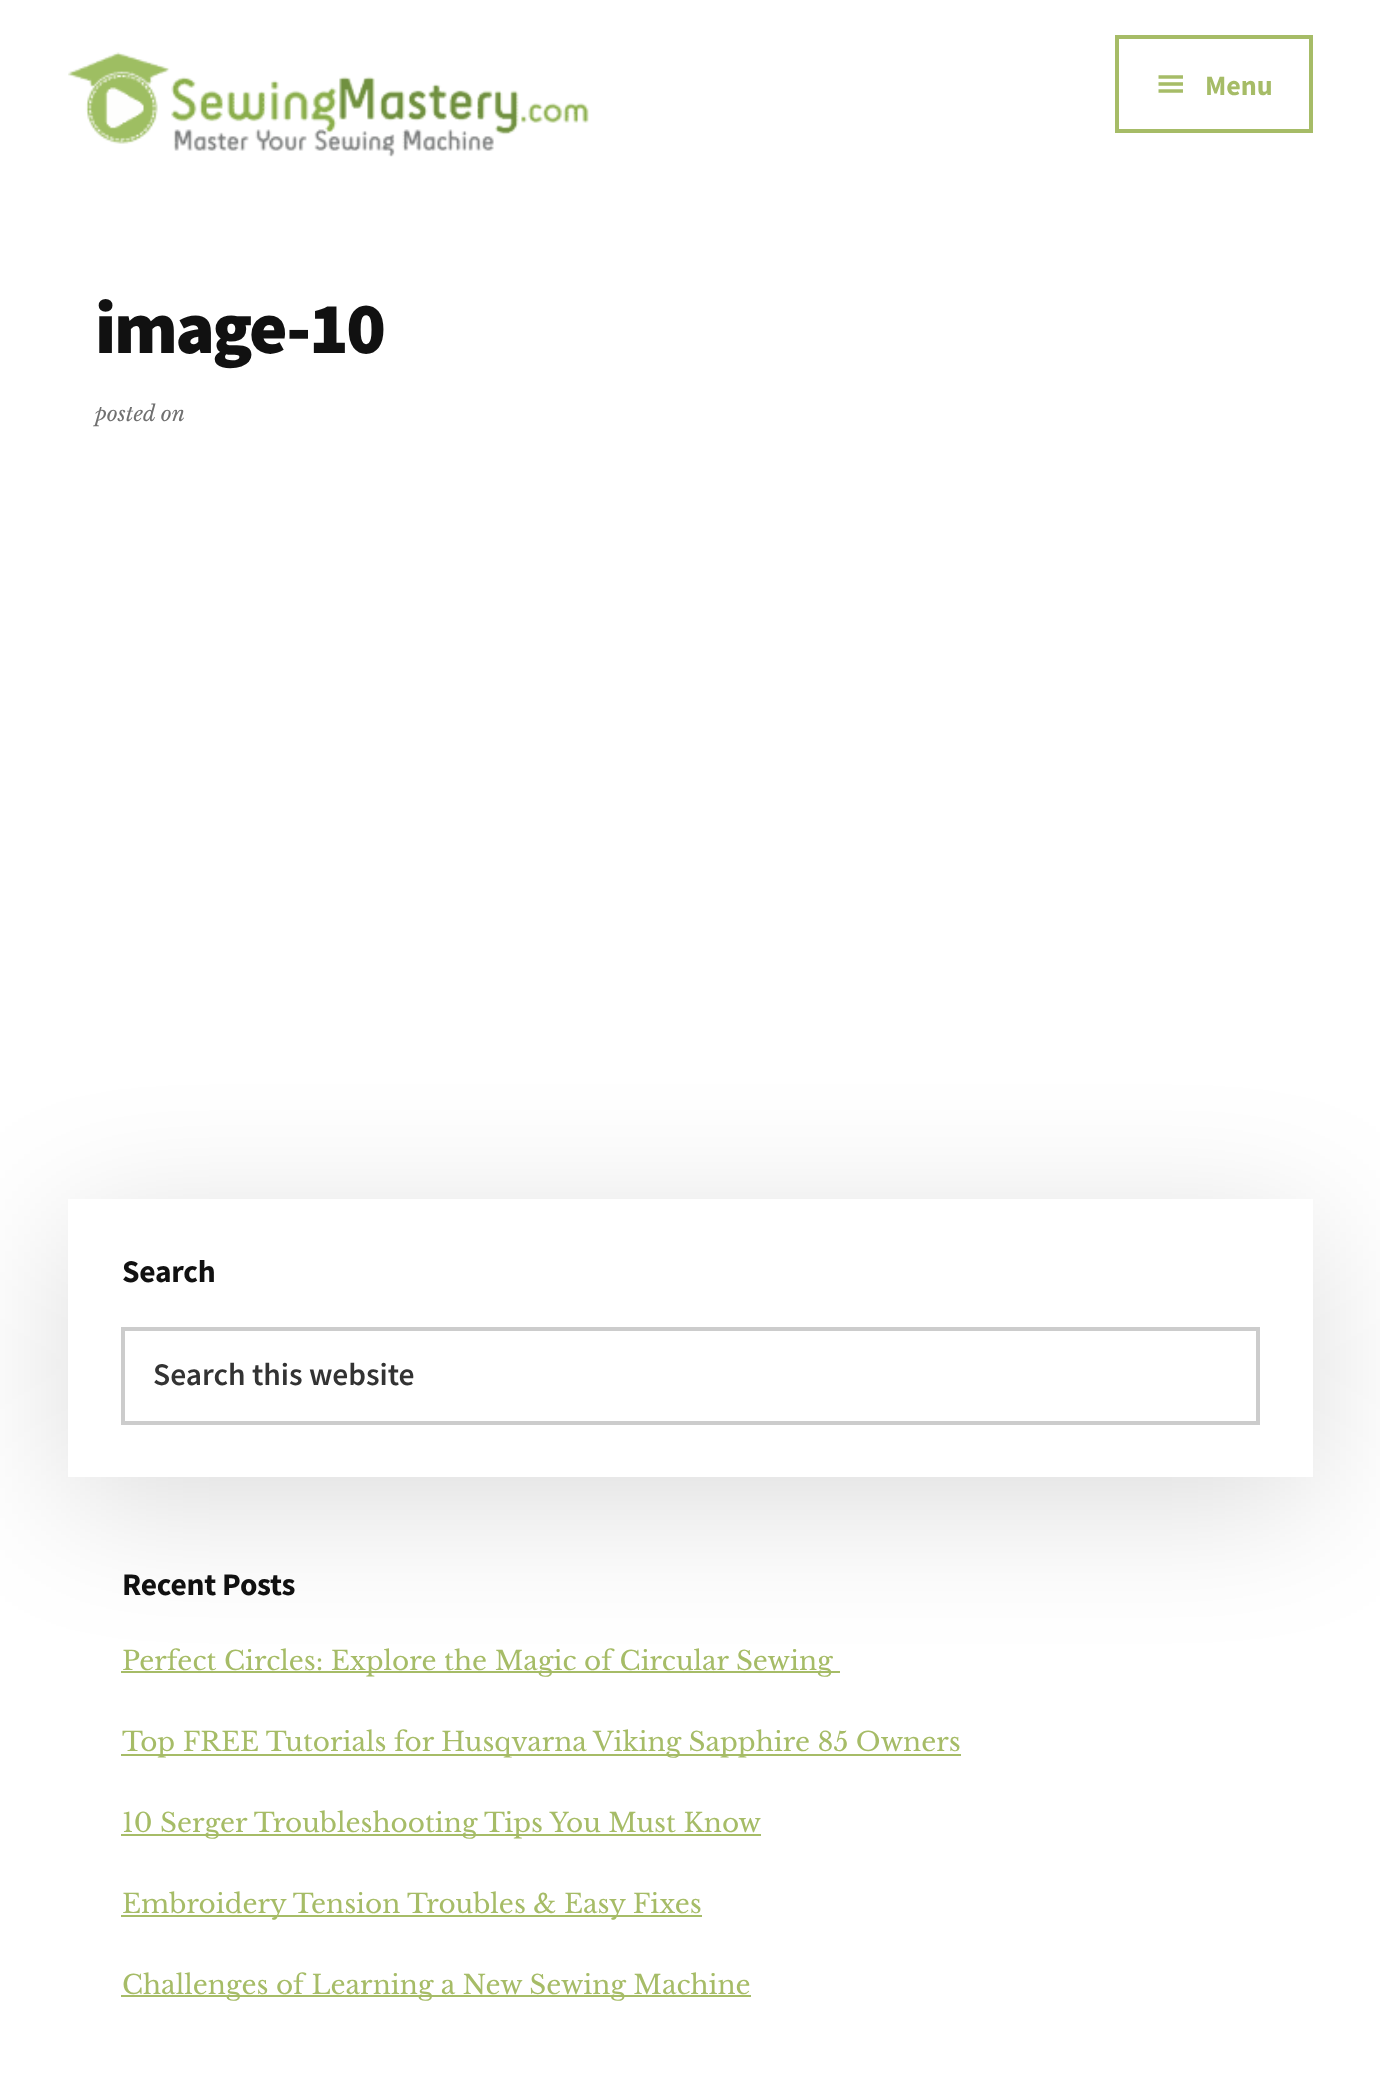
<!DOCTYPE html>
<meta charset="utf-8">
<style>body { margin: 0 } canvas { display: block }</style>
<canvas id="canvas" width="1380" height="2092"></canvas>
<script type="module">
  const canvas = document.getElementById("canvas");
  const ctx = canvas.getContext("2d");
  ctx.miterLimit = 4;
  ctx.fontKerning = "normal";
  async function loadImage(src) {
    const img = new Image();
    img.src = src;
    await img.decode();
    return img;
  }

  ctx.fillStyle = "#ffffff";
  ctx.fillRect(0, 0, 1380, 2092);
  ctx.drawImage(await loadImage("img1.png"), 68, 52, 521, 105);
  ctx.strokeStyle = "#a6bc67";
  ctx.lineWidth = 4;
  ctx.strokeRect(1117, 37, 194, 94);
  ctx.drawImage(await loadImage("img2.png"), 1158, 75, 25, 18);
  ctx.font = "bold 28px Source Sans Pro";
  ctx.fillStyle = "#a6bc67";
  ctx.fillText("Menu", 1205, 95);
  ctx.letterSpacing = "-2.25px";
  ctx.font = "900 73.5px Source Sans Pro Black";
  ctx.fillStyle = "#111111";
  ctx.fillText("image-10", 95, 353);
  ctx.letterSpacing = "0px";
  ctx.font = "italic 21px Libre Baskerville";
  ctx.fillStyle = "#707070";
  ctx.fillText("posted on", 95, 421);
  ctx.fillStyle = "rgba(0, 0, 0, 0.14)";
  ctx.filter = "blur(70px)";
  ctx.beginPath();
  ctx.rect(68, 1225, 1245, 278);
  ctx.fill();
  ctx.filter = "none";
  ctx.fillStyle = "#ffffff";
  ctx.fillRect(68, 1199, 1245, 278);
  ctx.letterSpacing = "-0.25px";
  ctx.font = "bold 31.5px Source Sans Pro";
  ctx.fillStyle = "#111111";
  ctx.fillText("Search", 122, 1282);
  ctx.strokeStyle = "#cccccc";
  ctx.strokeRect(123, 1329, 1135, 94);
  ctx.letterSpacing = "0px";
  ctx.font = "600 31.5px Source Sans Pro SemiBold";
  ctx.fillStyle = "#333333";
  ctx.fillText("Search this website", 153, 1385);
  ctx.letterSpacing = "-0.25px";
  ctx.font = "bold 31.5px Source Sans Pro";
  ctx.fillStyle = "#111111";
  ctx.fillText("Recent Posts", 122, 1595);
  ctx.fillStyle = "#a6bc67";
  ctx.fillRect(121, 1671, 719, 2);
  ctx.letterSpacing = "0px";
  ctx.font = "26.25px Libre Baskerville";
  ctx.fillText("Perfect Circles: Explore the Magic of Circular Sewing", 122, 1670);
  ctx.fillRect(121, 1754, 840, 2);
  ctx.fillText("Top FREE Tutorials for Husqvarna Viking Sapphire 85 Owners", 122, 1751);
  ctx.fillRect(121, 1834, 640, 2);
  ctx.fillText("10 Serger Troubleshooting Tips You Must Know", 122, 1832);
  ctx.fillRect(121, 1915, 581, 2);
  ctx.fillText("Embroidery Tension Troubles & Easy Fixes", 122, 1913);
  ctx.fillRect(121, 1995, 630, 2);
  ctx.fillText("Challenges of Learning a New Sewing Machine", 122, 1994);
</script>
